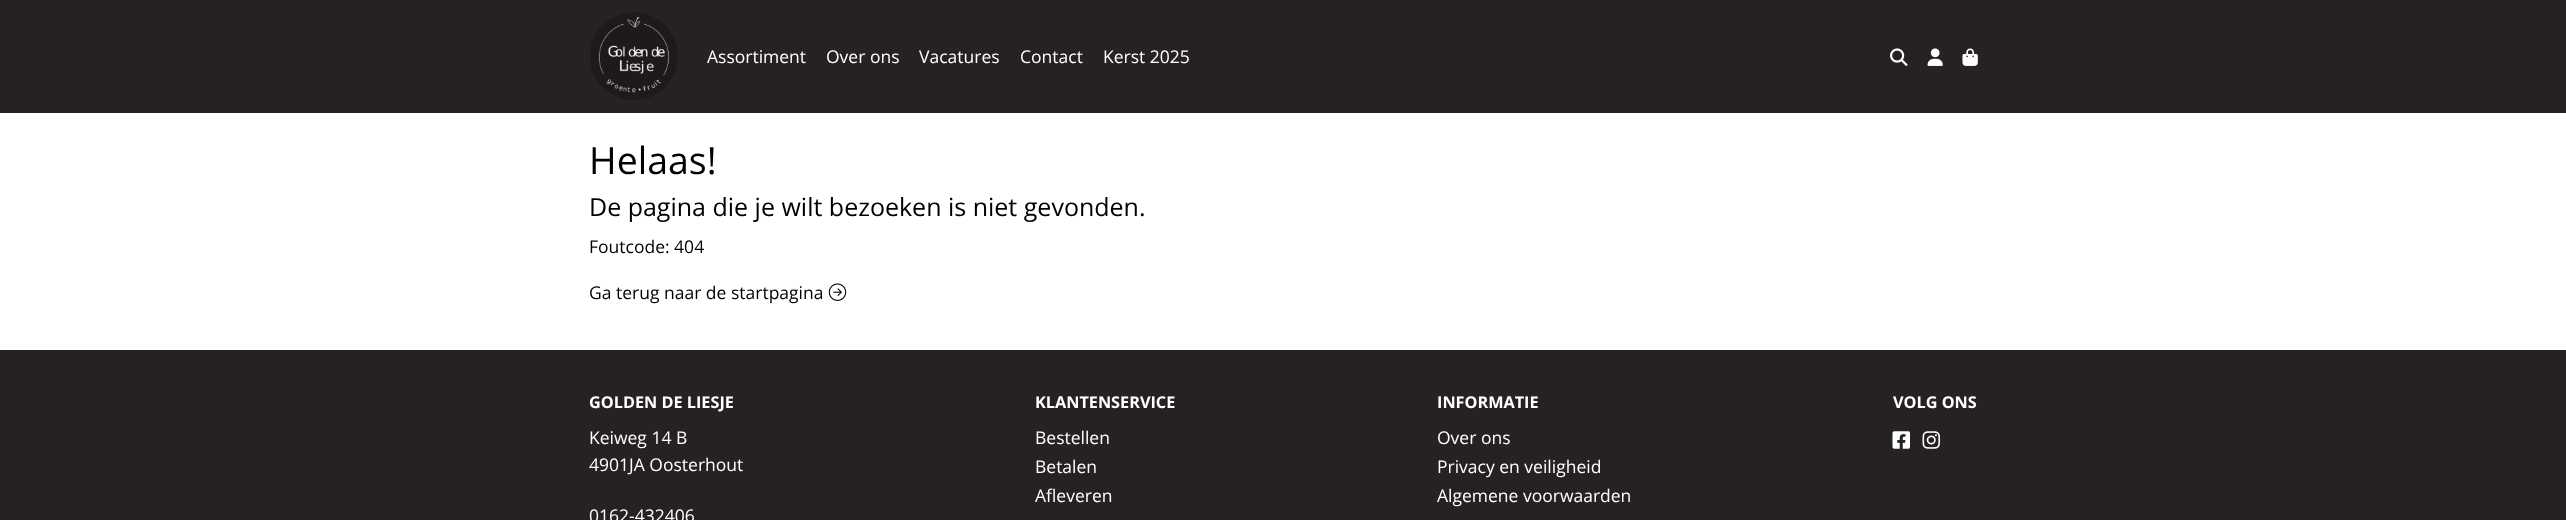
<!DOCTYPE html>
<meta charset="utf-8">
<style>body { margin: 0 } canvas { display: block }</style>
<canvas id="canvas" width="2566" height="520"></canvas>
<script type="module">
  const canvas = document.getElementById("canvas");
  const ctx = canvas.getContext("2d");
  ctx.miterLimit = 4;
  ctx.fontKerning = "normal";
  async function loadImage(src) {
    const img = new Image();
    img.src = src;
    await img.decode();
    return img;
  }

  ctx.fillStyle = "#ffffff";
  ctx.fillRect(0, 0, 2566, 520);
  ctx.fillStyle = "#262223";
  ctx.fillRect(0, 0, 2566, 113);
  ctx.drawImage(await loadImage("img1.png"), 590, 12, 88, 88);
  ctx.font = "17.5px Open Sans";
  ctx.fillStyle = "#ffffff";
  ctx.fillText("Assortiment", 707, 63);
  ctx.fillText("Over ons", 826, 63);
  ctx.fillText("Vacatures", 919, 63);
  ctx.fillText("Contact", 1020, 63);
  ctx.fillText("Kerst 2025", 1103, 63);
  ctx.drawImage(await loadImage("img2.png"), 1890, 48, 18, 18);
  ctx.drawImage(await loadImage("img3.png"), 1927, 48, 16, 18);
  ctx.drawImage(await loadImage("img4.png"), 1962, 48, 16, 18);
  ctx.font = "37.5px Open Sans";
  ctx.fillStyle = "#000000";
  ctx.fillText("Helaas!", 589, 174);
  ctx.font = "25px Open Sans";
  ctx.fillText("De pagina die je wilt bezoeken is niet gevonden.", 589, 216);
  ctx.font = "17.5px Open Sans";
  ctx.fillText("Foutcode: 404", 589, 253);
  ctx.fillText("Ga terug naar de startpagina", 589, 299);
  ctx.drawImage(await loadImage("img5.png"), 828, 283, 19, 18);
  ctx.fillStyle = "#262223";
  ctx.fillRect(0, 350, 2566, 170);
  ctx.font = "bold 16.25px Open Sans";
  ctx.fillStyle = "#ffffff";
  ctx.fillText("GOLDEN DE LIESJE", 589, 408);
  ctx.font = "17.5px Open Sans";
  ctx.fillText("Keiweg 14 B", 589, 444);
  ctx.fillText("4901JA Oosterhout", 589, 471);
  ctx.fillText("0162-432406", 589, 522);
  ctx.font = "bold 16.25px Open Sans";
  ctx.fillText("KLANTENSERVICE", 1035, 408);
  ctx.font = "17.5px Open Sans";
  ctx.fillText("Bestellen", 1035, 444);
  ctx.fillText("Betalen", 1035, 473);
  ctx.fillText("Afleveren", 1035, 502);
  ctx.font = "bold 16.25px Open Sans";
  ctx.fillText("INFORMATIE", 1437, 408);
  ctx.font = "17.5px Open Sans";
  ctx.fillText("Over ons", 1437, 444);
  ctx.fillText("Privacy en veiligheid", 1437, 473);
  ctx.fillText("Algemene voorwaarden", 1437, 502);
  ctx.font = "bold 16.25px Open Sans";
  ctx.fillText("VOLG ONS", 1893, 408);
  ctx.drawImage(await loadImage("img6.png"), 1892, 431, 18, 18);
  ctx.drawImage(await loadImage("img7.png"), 1922, 431, 18, 18);
</script>
